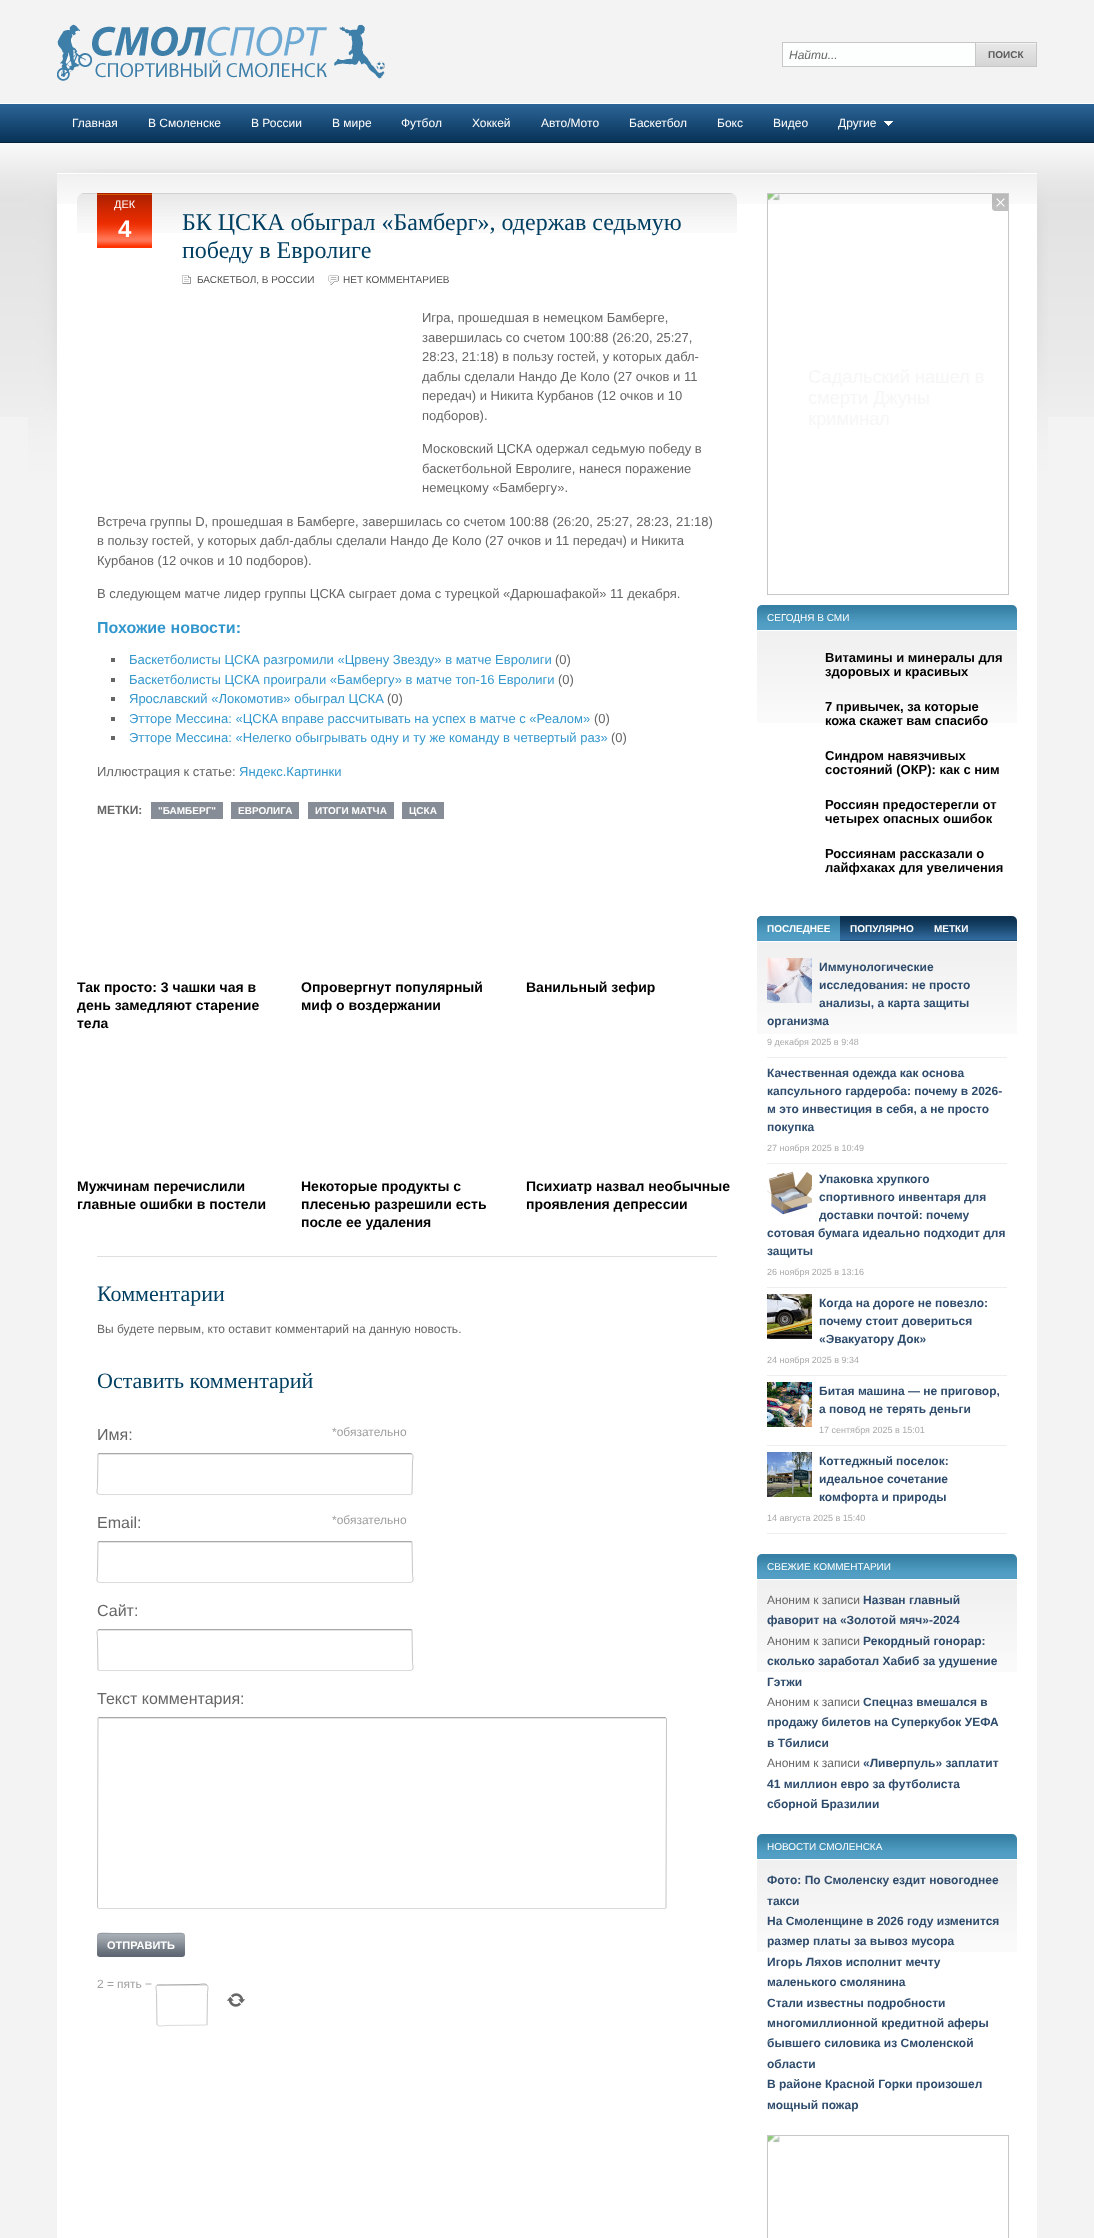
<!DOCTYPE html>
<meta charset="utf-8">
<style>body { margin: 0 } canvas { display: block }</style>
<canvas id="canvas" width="1094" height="2238"></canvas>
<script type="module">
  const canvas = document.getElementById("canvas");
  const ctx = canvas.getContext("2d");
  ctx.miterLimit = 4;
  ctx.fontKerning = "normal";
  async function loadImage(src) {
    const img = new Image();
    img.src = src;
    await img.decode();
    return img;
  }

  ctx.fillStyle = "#f3f3f3";
  ctx.fillRect(0, 0, 1094, 2238);
  ctx.fillStyle = "#ffffff";
  ctx.fillRect(0, 103, 1094, 1);
  ctx.drawImage(await loadImage("img1.png"), 57, 24, 328, 57);
  ctx.strokeStyle = "#c7c7c7";
  ctx.strokeRect(782.5, 42.5, 254, 24);
  ctx.fillStyle = "#fdfefe";
  ctx.fillRect(783, 43, 192, 23);
  ctx.fillStyle = "#c7c7c7";
  ctx.fillRect(975, 43, 1, 23);
  ctx.font = "italic 12px Liberation Sans";
  ctx.fillStyle = "#666666";
  ctx.fillText("Найти...", 789, 59);
  ctx.drawImage(await loadImage("img2.png"), 976, 44, 60, 22);
  ctx.font = "bold 10px Liberation Sans";
  ctx.fillStyle = "#5b5b5b";
  ctx.fillText("ПОИСК", 988, 58);
  ctx.drawImage(await loadImage("img3.png"), 0, 104, 1094, 39);
  ctx.font = "12px Liberation Sans";
  ctx.fillStyle = "#ffffff";
  ctx.fillText("Главная", 72, 127);
  ctx.fillText("В Смоленске", 148, 127);
  ctx.fillText("В России", 251, 127);
  ctx.fillText("В мире", 332, 127);
  ctx.fillText("Футбол", 401, 127);
  ctx.fillText("Хоккей", 472, 127);
  ctx.fillText("Авто/Мото", 541, 127);
  ctx.fillText("Баскетбол", 629, 127);
  ctx.fillText("Бокс", 717, 127);
  ctx.fillText("Видео", 773, 127);
  ctx.fillText("Другие", 838, 127);
  ctx.drawImage(await loadImage("img4.png"), 884, 121, 9, 5);
  ctx.drawImage(await loadImage("img5.png"), 0, 143, 1094, 274);
  ctx.drawImage(await loadImage("img6.png"), 28, 169, 1020, 441);
  ctx.fillRect(57, 173, 980, 2065);
  ctx.drawImage(await loadImage("img7.png"), 57, 174, 980, 30);
  ctx.drawImage(await loadImage("img8.png"), 77, 193, 660, 40);
  ctx.fillStyle = "#ff3203";
  ctx.fillRect(97, 246, 55, 2);
  ctx.drawImage(await loadImage("img9.png"), 97, 193, 55, 53);
  ctx.font = "11px Liberation Sans";
  ctx.fillStyle = "#ffffff";
  ctx.fillText("ДЕК", 114, 208);
  ctx.font = "bold 24px Liberation Sans";
  ctx.fillText("4", 118, 237);
  ctx.font = "24px Liberation Serif";
  ctx.fillStyle = "#003f62";
  ctx.fillText("БК ЦСКА обыграл «Бамберг», одержав седьмую", 182, 230);
  ctx.fillText("победу в Евролиге", 182, 258);
  ctx.drawImage(await loadImage("img10.png"), 182, 275, 9, 9);
  ctx.font = "10px Liberation Sans";
  ctx.fillStyle = "#505050";
  ctx.fillText("БАСКЕТБОЛ, В РОССИИ", 197, 283);
  ctx.drawImage(await loadImage("img11.png"), 328, 275, 11, 10);
  ctx.fillText("НЕТ КОММЕНТАРИЕВ", 343, 283);
  ctx.font = "13px Liberation Sans";
  ctx.fillStyle = "#666666";
  ctx.fillText("Игра, прошедшая в немецком Бамберге,", 422, 322);
  ctx.fillText("завершилась со счетом 100:88 (26:20, 25:27,", 422, 342);
  ctx.fillText("28:23, 21:18) в пользу гостей, у которых дабл-", 422, 361);
  ctx.fillText("даблы сделали Нандо Де Коло (27 очков и 11", 422, 381);
  ctx.fillText("передач) и Никита Курбанов (12 очков и 10", 422, 400);
  ctx.fillText("подборов).", 422, 420);
  ctx.fillText("Московский ЦСКА одержал седьмую победу в", 422, 453);
  ctx.fillText("баскетбольной Евролиге, нанеся поражение", 422, 473);
  ctx.fillText("немецкому «Бамбергу».", 422, 492);
  ctx.fillText("Встреча группы D, прошедшая в Бамберге, завершилась со счетом 100:88 (26:20, 25:27, 28:23, 21:18)", 97, 526);
  ctx.fillText("в пользу гостей, у которых дабл-даблы сделали Нандо Де Коло (27 очков и 11 передач) и Никита", 97, 545);
  ctx.fillText("Курбанов (12 очков и 10 подборов).", 97, 565);
  ctx.fillText("В следующем матче лидер группы ЦСКА сыграет дома с турецкой «Дарюшафакой» 11 декабря.", 97, 598);
  ctx.font = "bold 16px Liberation Sans";
  ctx.fillStyle = "#3397cd";
  ctx.fillText("Похожие новости:", 97, 633);
  ctx.fillStyle = "#666666";
  ctx.fillRect(111, 658, 4, 4);
  ctx.font = "13px Liberation Sans";
  ctx.fillStyle = "#3397cd";
  ctx.fillText("Баскетболисты ЦСКА разгромили «Црвену Звезду» в матче Евролиги", 129, 664);
  ctx.fillStyle = "#666666";
  ctx.fillText("(0)", 555, 664);
  ctx.fillRect(111, 678, 4, 4);
  ctx.fillStyle = "#3397cd";
  ctx.fillText("Баскетболисты ЦСКА проиграли «Бамбергу» в матче топ-16 Евролиги", 129, 684);
  ctx.fillStyle = "#666666";
  ctx.fillText("(0)", 558, 684);
  ctx.fillRect(111, 697, 4, 4);
  ctx.fillStyle = "#3397cd";
  ctx.fillText("Ярославский «Локомотив» обыграл ЦСКА", 129, 703);
  ctx.fillStyle = "#666666";
  ctx.fillText("(0)", 387, 703);
  ctx.fillRect(111, 717, 4, 4);
  ctx.fillStyle = "#3397cd";
  ctx.fillText("Этторе Мессина: «ЦСКА вправе рассчитывать на успех в матче с «Реалом»", 129, 723);
  ctx.fillStyle = "#666666";
  ctx.fillText("(0)", 594, 723);
  ctx.fillRect(111, 736, 4, 4);
  ctx.fillStyle = "#3397cd";
  ctx.fillText("Этторе Мессина: «Нелегко обыгрывать одну и ту же команду в четвертый раз»", 129, 742);
  ctx.fillStyle = "#666666";
  ctx.fillText("(0)", 611, 742);
  ctx.fillText("Иллюстрация к статье:", 97, 776);
  ctx.fillStyle = "#3397cd";
  ctx.fillText("Яндекс.Картинки", 239, 776);
  ctx.font = "bold 12px Liberation Sans";
  ctx.fillStyle = "#666666";
  ctx.fillText("МЕТКИ:", 97, 814);
  ctx.fillStyle = "#868d96";
  ctx.fillRect(151, 802, 72, 17);
  ctx.font = "bold 10px Liberation Sans";
  ctx.fillStyle = "#ffffff";
  ctx.fillText("\"БАМБЕРГ\"", 158, 814);
  ctx.fillStyle = "#868d96";
  ctx.fillRect(231, 802, 68, 17);
  ctx.fillStyle = "#ffffff";
  ctx.fillText("ЕВРОЛИГА", 238, 814);
  ctx.fillStyle = "#868d96";
  ctx.fillRect(308, 802, 86, 17);
  ctx.fillStyle = "#ffffff";
  ctx.fillText("ИТОГИ МАТЧА", 315, 814);
  ctx.fillStyle = "#868d96";
  ctx.fillRect(402, 802, 42, 17);
  ctx.fillStyle = "#ffffff";
  ctx.fillText("ЦСКА", 409, 814);
  ctx.font = "bold 14px Liberation Sans";
  ctx.fillStyle = "#000000";
  ctx.fillText("Так просто: 3 чашки чая в", 77, 992);
  ctx.fillText("день замедляют старение", 77, 1010);
  ctx.fillText("тела", 77, 1028);
  ctx.fillText("Опровергнут популярный", 301, 992);
  ctx.fillText("миф о воздержании", 301, 1010);
  ctx.fillText("Ванильный зефир", 526, 992);
  ctx.fillText("Мужчинам перечислили", 77, 1191);
  ctx.fillText("главные ошибки в постели", 77, 1209);
  ctx.fillText("Некоторые продукты с", 301, 1191);
  ctx.fillText("плесенью разрешили есть", 301, 1209);
  ctx.fillText("после ее удаления", 301, 1227);
  ctx.fillText("Психиатр назвал необычные", 526, 1191);
  ctx.fillText("проявления депрессии", 526, 1209);
  ctx.fillStyle = "#dfdfdf";
  ctx.fillRect(97, 1256, 620, 1);
  ctx.font = "22px Liberation Serif";
  ctx.fillStyle = "#003f62";
  ctx.fillText("Комментарии", 97, 1301);
  ctx.font = "12px Liberation Sans";
  ctx.fillStyle = "#666666";
  ctx.fillText("Вы будете первым, кто оставит комментарий на данную новость.", 97, 1333);
  ctx.font = "22px Liberation Serif";
  ctx.fillStyle = "#003f62";
  ctx.fillText("Оставить комментарий", 97, 1388);
  ctx.font = "16px Liberation Sans";
  ctx.fillStyle = "#666666";
  ctx.fillText("Имя:", 97, 1440);
  ctx.font = "12px Liberation Sans";
  ctx.fillStyle = "#a0a0a0";
  ctx.fillText("*обязательно", 332, 1436);
  ctx.fillStyle = "#e4e5e5";
  ctx.beginPath();
  ctx.moveTo(99, 1455);
  ctx.lineTo(411, 1455);
  ctx.bezierCurveTo(412, 1455, 412, 1455, 412, 1456);
  ctx.bezierCurveTo(412, 1455, 412, 1454, 411, 1454);
  ctx.lineTo(99, 1454);
  ctx.lineTo(98, 1454);
  ctx.lineTo(98, 1456);
  ctx.bezierCurveTo(98, 1455, 98, 1455, 99, 1455);
  ctx.closePath();
  ctx.fill();
  ctx.beginPath();
  ctx.moveTo(98, 1454);
  ctx.lineTo(99, 1453.5);
  ctx.lineTo(411, 1453.5);
  ctx.lineTo(412, 1454);
  ctx.strokeStyle = "#a8a8a8";
  ctx.stroke();
  ctx.beginPath();
  ctx.moveTo(412, 1454);
  ctx.bezierCurveTo(414, 1455.5, 412.5, 1459, 412.5, 1461.5);
  ctx.lineTo(412, 1494);
  ctx.strokeStyle = "#c6c6c6";
  ctx.stroke();
  ctx.beginPath();
  ctx.moveTo(412, 1494);
  ctx.lineTo(411, 1494.5);
  ctx.lineTo(99, 1494.5);
  ctx.lineTo(98, 1494);
  ctx.strokeStyle = "#dbdbdb";
  ctx.stroke();
  ctx.beginPath();
  ctx.moveTo(98, 1494);
  ctx.bezierCurveTo(96, 1492.5, 97.5, 1489, 97.5, 1486.5);
  ctx.lineTo(98, 1454);
  ctx.strokeStyle = "#c6c6c6";
  ctx.stroke();
  ctx.font = "16px Liberation Sans";
  ctx.fillStyle = "#666666";
  ctx.fillText("Email:", 97, 1528);
  ctx.font = "12px Liberation Sans";
  ctx.fillStyle = "#a0a0a0";
  ctx.fillText("*обязательно", 332, 1524);
  ctx.fillStyle = "#e4e5e5";
  ctx.beginPath();
  ctx.moveTo(99, 1543);
  ctx.lineTo(411, 1543);
  ctx.bezierCurveTo(412, 1543, 412, 1543, 412, 1544);
  ctx.bezierCurveTo(412, 1543, 412, 1542, 411, 1542);
  ctx.lineTo(99, 1542);
  ctx.lineTo(98, 1542);
  ctx.lineTo(98, 1544);
  ctx.bezierCurveTo(98, 1543, 98, 1543, 99, 1543);
  ctx.closePath();
  ctx.fill();
  ctx.beginPath();
  ctx.moveTo(98, 1542);
  ctx.lineTo(99, 1541.5);
  ctx.lineTo(411, 1541.5);
  ctx.lineTo(412, 1542);
  ctx.strokeStyle = "#a8a8a8";
  ctx.stroke();
  ctx.beginPath();
  ctx.moveTo(412, 1542);
  ctx.lineTo(412.5, 1574.5);
  ctx.bezierCurveTo(412.5, 1577, 414, 1580.5, 412, 1582);
  ctx.strokeStyle = "#c6c6c6";
  ctx.stroke();
  ctx.beginPath();
  ctx.moveTo(412, 1582);
  ctx.lineTo(411, 1582.5);
  ctx.lineTo(99, 1582.5);
  ctx.lineTo(98, 1582);
  ctx.strokeStyle = "#dbdbdb";
  ctx.stroke();
  ctx.beginPath();
  ctx.moveTo(98, 1582);
  ctx.bezierCurveTo(96, 1580.5, 97.5, 1577, 97.5, 1574.5);
  ctx.lineTo(98, 1542);
  ctx.strokeStyle = "#c6c6c6";
  ctx.stroke();
  ctx.font = "16px Liberation Sans";
  ctx.fillStyle = "#666666";
  ctx.fillText("Сайт:", 97, 1616);
  ctx.fillStyle = "#e4e5e5";
  ctx.beginPath();
  ctx.moveTo(99, 1631);
  ctx.lineTo(411, 1631);
  ctx.bezierCurveTo(412, 1631, 412, 1631, 412, 1632);
  ctx.bezierCurveTo(412, 1631, 412, 1630, 411, 1630);
  ctx.lineTo(99, 1630);
  ctx.lineTo(98, 1630);
  ctx.lineTo(98, 1632);
  ctx.bezierCurveTo(98, 1631, 98, 1631, 99, 1631);
  ctx.closePath();
  ctx.fill();
  ctx.beginPath();
  ctx.moveTo(98, 1630);
  ctx.lineTo(99, 1629.5);
  ctx.lineTo(411, 1629.5);
  ctx.lineTo(412, 1630);
  ctx.strokeStyle = "#a8a8a8";
  ctx.stroke();
  ctx.beginPath();
  ctx.moveTo(412, 1630);
  ctx.lineTo(412.5, 1662.5);
  ctx.bezierCurveTo(412.5, 1665, 414, 1668.5, 412, 1670);
  ctx.strokeStyle = "#c6c6c6";
  ctx.stroke();
  ctx.beginPath();
  ctx.moveTo(412, 1670);
  ctx.lineTo(411, 1670.5);
  ctx.lineTo(99, 1670.5);
  ctx.lineTo(98, 1670);
  ctx.strokeStyle = "#dbdbdb";
  ctx.stroke();
  ctx.beginPath();
  ctx.moveTo(98, 1670);
  ctx.lineTo(97.5, 1637.5);
  ctx.bezierCurveTo(97.5, 1635, 96, 1631.5, 98, 1630);
  ctx.strokeStyle = "#c6c6c6";
  ctx.stroke();
  ctx.fillStyle = "#666666";
  ctx.fillText("Текст комментария:", 97, 1704);
  ctx.fillStyle = "#e4e5e5";
  ctx.beginPath();
  ctx.moveTo(99, 1719);
  ctx.lineTo(665, 1719);
  ctx.bezierCurveTo(666, 1719, 666, 1719, 666, 1720);
  ctx.bezierCurveTo(666, 1719, 666, 1718, 665, 1718);
  ctx.lineTo(99, 1718);
  ctx.lineTo(98, 1719);
  ctx.lineTo(98, 1720);
  ctx.bezierCurveTo(98, 1719, 98, 1719, 99, 1719);
  ctx.closePath();
  ctx.fill();
  ctx.beginPath();
  ctx.moveTo(98, 1718);
  ctx.lineTo(99, 1717.5);
  ctx.lineTo(665, 1717.5);
  ctx.lineTo(666, 1718);
  ctx.strokeStyle = "#a8a8a8";
  ctx.stroke();
  ctx.beginPath();
  ctx.moveTo(666, 1718);
  ctx.lineTo(666.5, 1719);
  ctx.lineTo(666, 1908);
  ctx.strokeStyle = "#c6c6c6";
  ctx.stroke();
  ctx.beginPath();
  ctx.moveTo(666, 1908);
  ctx.lineTo(665, 1908.5);
  ctx.lineTo(99, 1908.5);
  ctx.lineTo(98, 1908);
  ctx.strokeStyle = "#dbdbdb";
  ctx.stroke();
  ctx.beginPath();
  ctx.moveTo(98, 1908);
  ctx.lineTo(97.5, 1907);
  ctx.lineTo(98, 1718);
  ctx.strokeStyle = "#c6c6c6";
  ctx.stroke();
  ctx.drawImage(await loadImage("img12.png"), 97, 1933, 88, 24);
  ctx.fillStyle = "rgba(0, 0, 0, 0.1)";
  ctx.beginPath();
  ctx.moveTo(100, 1934);
  ctx.lineTo(182, 1934);
  ctx.bezierCurveTo(184, 1934, 185, 1935, 185, 1937);
  ctx.bezierCurveTo(185, 1929, 172, 1933, 168, 1933);
  ctx.lineTo(114, 1933);
  ctx.bezierCurveTo(110, 1933, 97, 1929, 97, 1937);
  ctx.bezierCurveTo(97, 1935, 98, 1934, 100, 1934);
  ctx.closePath();
  ctx.fill();
  ctx.font = "bold 11px Liberation Sans";
  ctx.fillStyle = "#ffffff";
  ctx.fillText("ОТПРАВИТЬ", 107, 1949);
  ctx.font = "12px Liberation Sans";
  ctx.fillStyle = "#a0a0a0";
  ctx.fillText("2", 97, 1988);
  ctx.fillText("=", 107, 1988);
  ctx.fillText("пять", 117, 1988);
  ctx.fillText("−", 145, 1988);
  ctx.fillStyle = "#e4e5e5";
  ctx.beginPath();
  ctx.moveTo(158, 1986);
  ctx.lineTo(206, 1986);
  ctx.bezierCurveTo(207, 1986, 207, 1986, 207, 1987);
  ctx.bezierCurveTo(207, 1983, 202, 1985, 198, 1985);
  ctx.lineTo(166, 1985);
  ctx.bezierCurveTo(162, 1985, 157, 1983, 157, 1987);
  ctx.bezierCurveTo(157, 1986, 157, 1986, 158, 1986);
  ctx.closePath();
  ctx.fill();
  ctx.beginPath();
  ctx.moveTo(157, 1985);
  ctx.lineTo(198, 1984.5);
  ctx.bezierCurveTo(201, 1984.5, 205, 1983, 207, 1985);
  ctx.strokeStyle = "#a8a8a8";
  ctx.stroke();
  ctx.beginPath();
  ctx.moveTo(207, 1985);
  ctx.bezierCurveTo(209, 1986.5, 207.5, 1990, 207.5, 1992.5);
  ctx.lineTo(207, 2025);
  ctx.strokeStyle = "#c6c6c6";
  ctx.stroke();
  ctx.beginPath();
  ctx.moveTo(207, 2025);
  ctx.lineTo(166, 2025.5);
  ctx.bezierCurveTo(163, 2025.5, 159, 2027, 157, 2025);
  ctx.strokeStyle = "#dbdbdb";
  ctx.stroke();
  ctx.beginPath();
  ctx.moveTo(157, 2025);
  ctx.lineTo(156.5, 1992.5);
  ctx.bezierCurveTo(156.5, 1990, 155, 1986.5, 157, 1985);
  ctx.strokeStyle = "#c6c6c6";
  ctx.stroke();
  ctx.drawImage(await loadImage("img13.png"), 226, 1993, 20, 14);
  ctx.strokeStyle = "#c7c7c7";
  ctx.strokeRect(767.5, 193.5, 241, 401);
  ctx.drawImage(await loadImage("img14.png"), 768, 194, 240, 235);
  ctx.drawImage(await loadImage("img15.png"), 757, 605, 260, 25);
  ctx.font = "10px Liberation Sans";
  ctx.fillStyle = "#ffffff";
  ctx.fillText("СЕГОДНЯ В СМИ", 767, 621);
  ctx.drawImage(await loadImage("img16.png"), 757, 631, 260, 92);
  ctx.font = "bold 13px Liberation Sans";
  ctx.fillStyle = "#000000";
  ctx.fillText("Витамины и минералы для", 825, 662);
  ctx.fillText("здоровых и красивых", 825, 676);
  ctx.fillText("7 привычек, за которые", 825, 711);
  ctx.fillText("кожа скажет вам спасибо", 825, 725);
  ctx.fillText("Синдром навязчивых", 825, 760);
  ctx.fillText("состояний (ОКР): как с ним", 825, 774);
  ctx.fillText("Россиян предостерегли от", 825, 809);
  ctx.fillText("четырех опасных ошибок", 825, 823);
  ctx.fillText("Россиянам рассказали о", 825, 858);
  ctx.fillText("лайфхаках для увеличения", 825, 872);
  ctx.drawImage(await loadImage("img17.png"), 757, 916, 260, 25);
  ctx.drawImage(await loadImage("img18.png"), 757, 916, 83, 25);
  ctx.font = "bold 10px Liberation Sans";
  ctx.fillStyle = "#ffffff";
  ctx.fillText("ПОСЛЕДНЕЕ", 767, 932);
  ctx.fillText("ПОПУЛЯРНО", 850, 932);
  ctx.fillText("МЕТКИ", 934, 932);
  ctx.drawImage(await loadImage("img16.png"), 757, 942, 260, 92);
  ctx.fillStyle = "#eeeeee";
  ctx.fillRect(767, 1057, 240, 1);
  ctx.drawImage(await loadImage("img19.png"), 767, 958, 45, 45);
  ctx.font = "bold 12px Liberation Sans";
  ctx.fillStyle = "#2f4c6c";
  ctx.fillText("Иммунологические", 819, 971);
  ctx.fillText("исследования: не просто", 819, 989);
  ctx.fillText("анализы, а карта защиты", 819, 1007);
  ctx.fillText("организма", 767, 1025);
  ctx.font = "9px Liberation Sans";
  ctx.fillStyle = "#a9a9a9";
  ctx.fillText("9 декабря 2025 в 9:48", 767, 1045);
  ctx.fillStyle = "#eeeeee";
  ctx.fillRect(767, 1163, 240, 1);
  ctx.font = "bold 12px Liberation Sans";
  ctx.fillStyle = "#2f4c6c";
  ctx.fillText("Качественная одежда как основа", 767, 1077);
  ctx.fillText("капсульного гардероба: почему в 2026-", 767, 1095);
  ctx.fillText("м это инвестиция в себя, а не просто", 767, 1113);
  ctx.fillText("покупка", 767, 1131);
  ctx.font = "9px Liberation Sans";
  ctx.fillStyle = "#a9a9a9";
  ctx.fillText("27 ноября 2025 в 10:49", 767, 1151);
  ctx.fillStyle = "#eeeeee";
  ctx.fillRect(767, 1287, 240, 1);
  ctx.drawImage(await loadImage("img20.png"), 767, 1171, 45, 44);
  ctx.font = "bold 12px Liberation Sans";
  ctx.fillStyle = "#2f4c6c";
  ctx.fillText("Упаковка хрупкого", 819, 1183);
  ctx.fillText("спортивного инвентаря для", 819, 1201);
  ctx.fillText("доставки почтой: почему", 819, 1219);
  ctx.fillText("сотовая бумага идеально подходит для", 767, 1237);
  ctx.fillText("защиты", 767, 1255);
  ctx.font = "9px Liberation Sans";
  ctx.fillStyle = "#a9a9a9";
  ctx.fillText("26 ноября 2025 в 13:16", 767, 1275);
  ctx.fillStyle = "#eeeeee";
  ctx.fillRect(767, 1375, 240, 1);
  ctx.drawImage(await loadImage("img21.png"), 767, 1294, 45, 45);
  ctx.font = "bold 12px Liberation Sans";
  ctx.fillStyle = "#2f4c6c";
  ctx.fillText("Когда на дороге не повезло:", 819, 1307);
  ctx.fillText("почему стоит довериться", 819, 1325);
  ctx.fillText("«Эвакуатору Док»", 819, 1343);
  ctx.font = "9px Liberation Sans";
  ctx.fillStyle = "#a9a9a9";
  ctx.fillText("24 ноября 2025 в 9:34", 767, 1363);
  ctx.fillStyle = "#eeeeee";
  ctx.fillRect(767, 1445, 240, 1);
  ctx.drawImage(await loadImage("img22.png"), 767, 1382, 45, 45);
  ctx.font = "bold 12px Liberation Sans";
  ctx.fillStyle = "#2f4c6c";
  ctx.fillText("Битая машина — не приговор,", 819, 1395);
  ctx.fillText("а повод не терять деньги", 819, 1413);
  ctx.font = "9px Liberation Sans";
  ctx.fillStyle = "#a9a9a9";
  ctx.fillText("17 сентября 2025 в 15:01", 819, 1433);
  ctx.fillStyle = "#eeeeee";
  ctx.fillRect(767, 1533, 240, 1);
  ctx.drawImage(await loadImage("img23.png"), 767, 1452, 45, 45);
  ctx.font = "bold 12px Liberation Sans";
  ctx.fillStyle = "#2f4c6c";
  ctx.fillText("Коттеджный поселок:", 819, 1465);
  ctx.fillText("идеальное сочетание", 819, 1483);
  ctx.fillText("комфорта и природы", 819, 1501);
  ctx.font = "9px Liberation Sans";
  ctx.fillStyle = "#a9a9a9";
  ctx.fillText("14 августа 2025 в 15:40", 767, 1521);
  ctx.drawImage(await loadImage("img15.png"), 757, 1554, 260, 25);
  ctx.font = "10px Liberation Sans";
  ctx.fillStyle = "#ffffff";
  ctx.fillText("СВЕЖИЕ КОММЕНТАРИИ", 767, 1570);
  ctx.drawImage(await loadImage("img16.png"), 757, 1580, 260, 92);
  ctx.font = "12px Liberation Sans";
  ctx.fillStyle = "#666666";
  ctx.fillText("Аноним к записи", 767, 1604);
  ctx.font = "bold 12px Liberation Sans";
  ctx.fillStyle = "#2f4c6c";
  ctx.fillText("Назван главный", 863, 1604);
  ctx.fillText("фаворит на «Золотой мяч»-2024", 767, 1624);
  ctx.font = "12px Liberation Sans";
  ctx.fillStyle = "#666666";
  ctx.fillText("Аноним к записи", 767, 1645);
  ctx.font = "bold 12px Liberation Sans";
  ctx.fillStyle = "#2f4c6c";
  ctx.fillText("Рекордный гонорар:", 863, 1645);
  ctx.fillText("сколько заработал Хабиб за удушение", 767, 1665);
  ctx.fillText("Гэтжи", 767, 1686);
  ctx.font = "12px Liberation Sans";
  ctx.fillStyle = "#666666";
  ctx.fillText("Аноним к записи", 767, 1706);
  ctx.font = "bold 12px Liberation Sans";
  ctx.fillStyle = "#2f4c6c";
  ctx.fillText("Спецназ вмешался в", 863, 1706);
  ctx.fillText("продажу билетов на Суперкубок УЕФА", 767, 1726);
  ctx.fillText("в Тбилиси", 767, 1747);
  ctx.font = "12px Liberation Sans";
  ctx.fillStyle = "#666666";
  ctx.fillText("Аноним к записи", 767, 1767);
  ctx.font = "bold 12px Liberation Sans";
  ctx.fillStyle = "#2f4c6c";
  ctx.fillText("«Ливерпуль» заплатит", 863, 1767);
  ctx.fillText("41 миллион евро за футболиста", 767, 1788);
  ctx.fillText("сборной Бразилии", 767, 1808);
  ctx.drawImage(await loadImage("img15.png"), 757, 1834, 260, 25);
  ctx.font = "10px Liberation Sans";
  ctx.fillStyle = "#ffffff";
  ctx.fillText("НОВОСТИ СМОЛЕНСКА", 767, 1850);
  ctx.drawImage(await loadImage("img16.png"), 757, 1860, 260, 92);
  ctx.font = "bold 12px Liberation Sans";
  ctx.fillStyle = "#2f4c6c";
  ctx.fillText("Фото: По Смоленску ездит новогоднее", 767, 1884);
  ctx.fillText("такси", 767, 1905);
  ctx.fillText("На Смоленщине в 2026 году изменится", 767, 1925);
  ctx.fillText("размер платы за вывоз мусора", 767, 1945);
  ctx.fillText("Игорь Ляхов исполнит мечту", 767, 1966);
  ctx.fillText("маленького смолянина", 767, 1986);
  ctx.fillText("Стали известны подробности", 767, 2007);
  ctx.fillText("многомиллионной кредитной аферы", 767, 2027);
  ctx.fillText("бывшего силовика из Смоленской", 767, 2047);
  ctx.fillText("области", 767, 2068);
  ctx.fillText("В районе Красной Горки произошел", 767, 2088);
  ctx.fillText("мощный пожар", 767, 2109);
  ctx.strokeRect(767.5, 2135.5, 241, 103);
  ctx.drawImage(await loadImage("img24.png"), 768, 2136, 12, 7);
</script>
